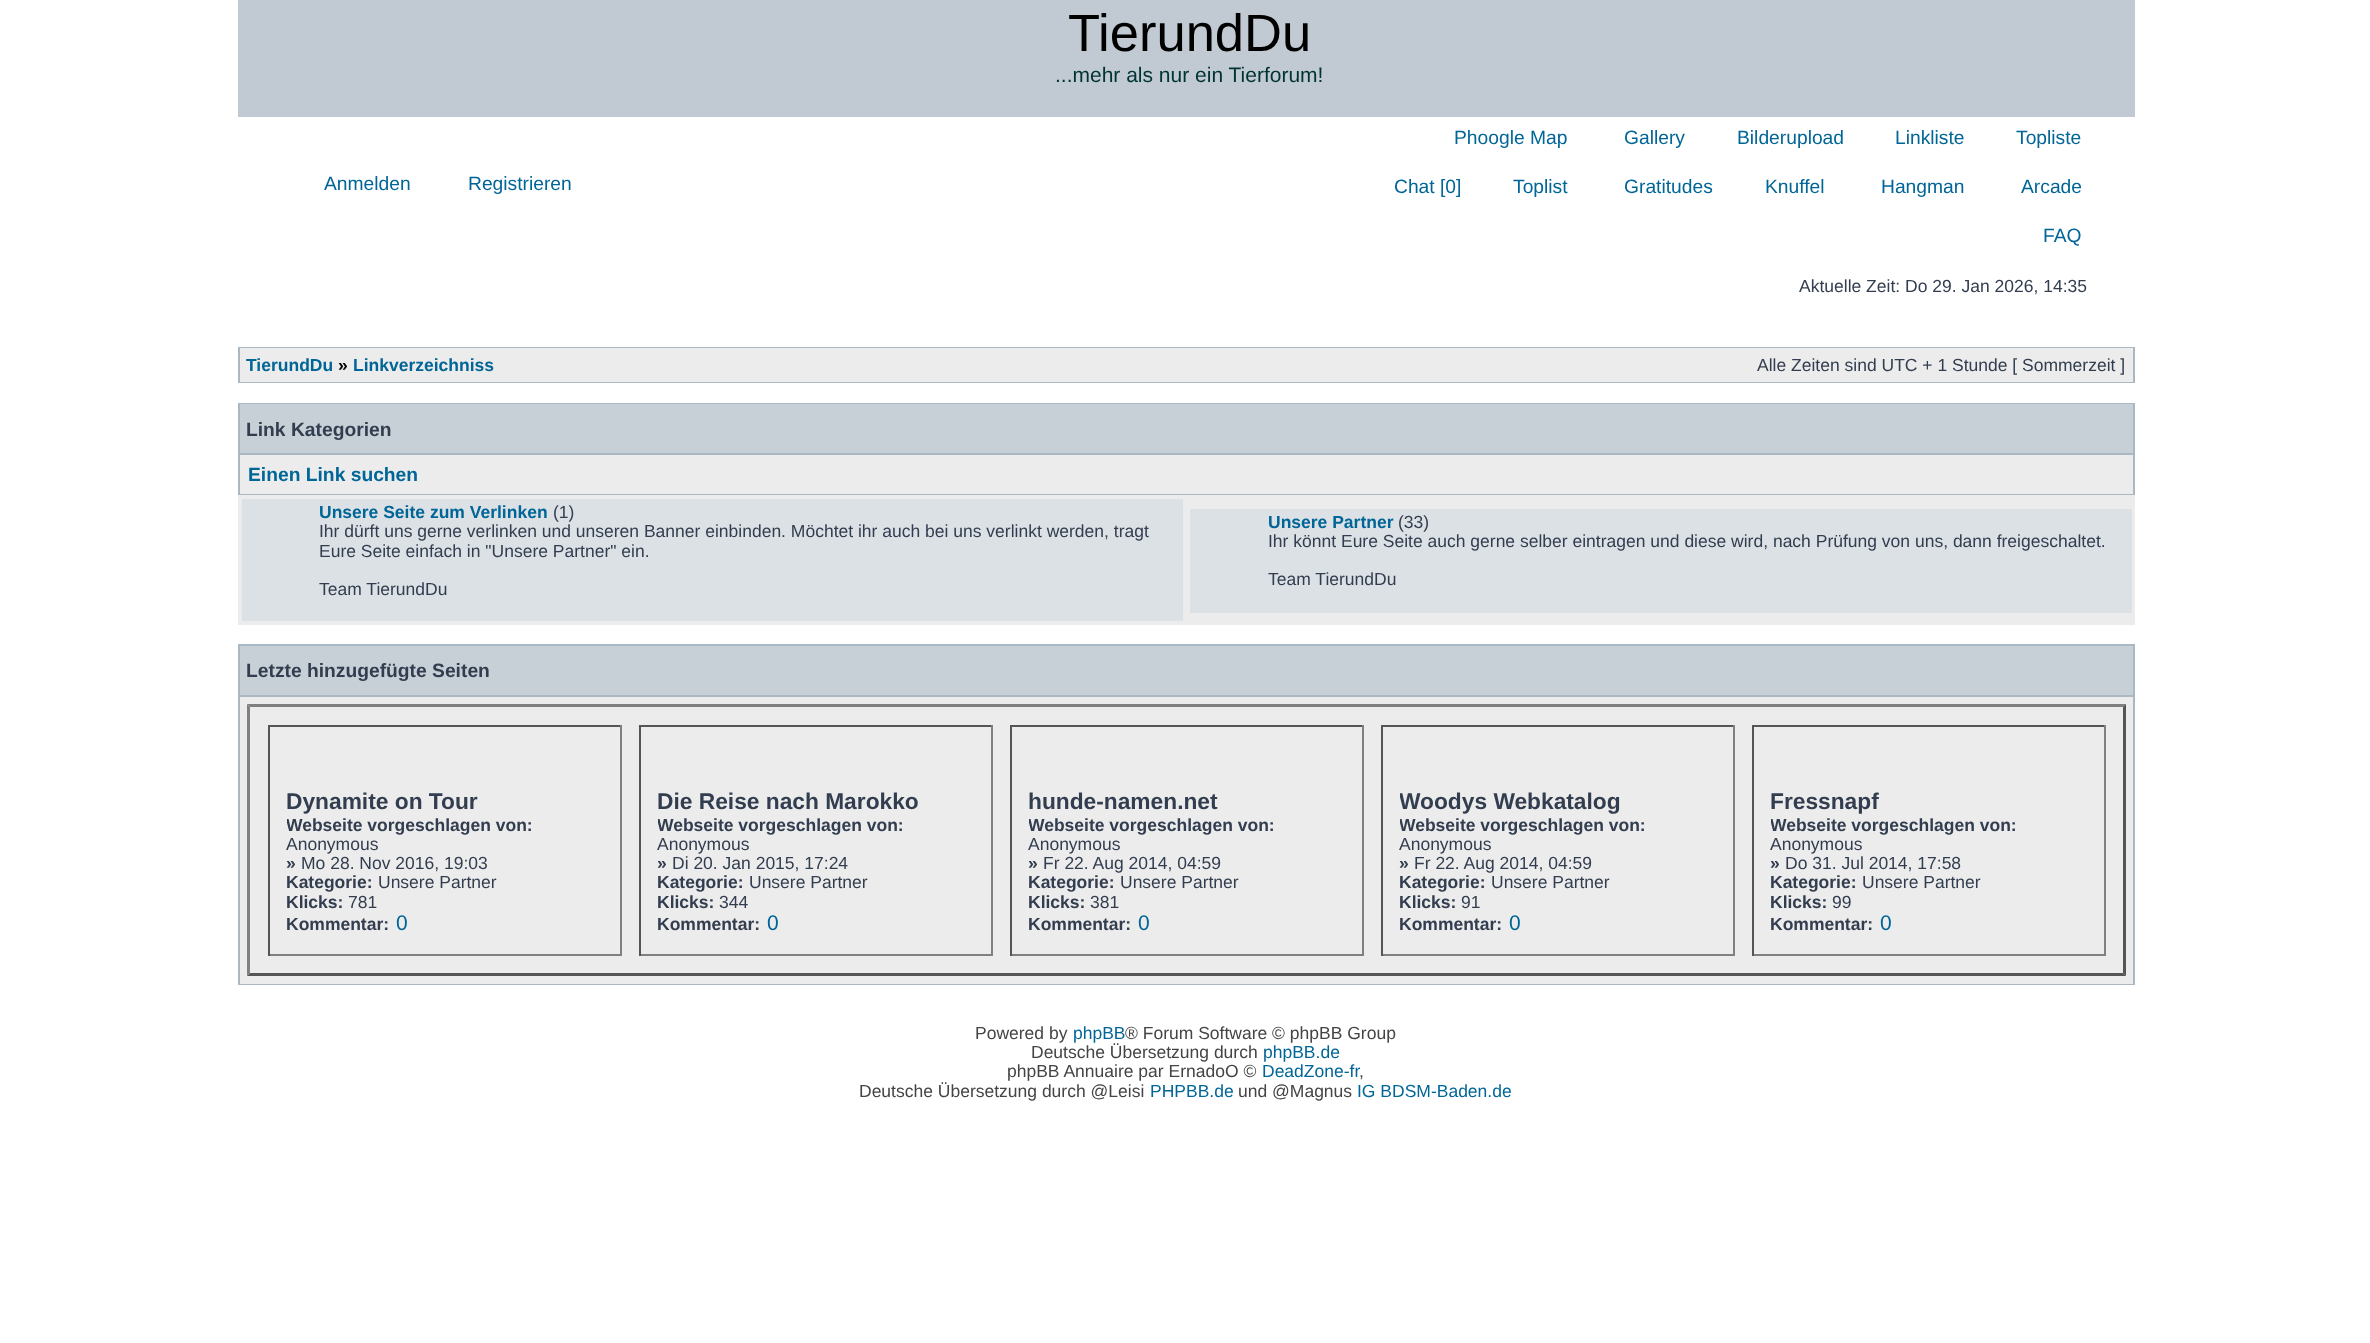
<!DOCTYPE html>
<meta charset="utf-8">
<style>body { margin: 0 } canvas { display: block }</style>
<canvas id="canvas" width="2370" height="1343"></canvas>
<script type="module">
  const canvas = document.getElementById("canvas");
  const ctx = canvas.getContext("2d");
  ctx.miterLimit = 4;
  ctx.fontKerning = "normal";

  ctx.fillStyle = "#ffffff";
  ctx.fillRect(0, 0, 2370, 1343);
  ctx.fillStyle = "#c1cad2";
  ctx.fillRect(238, 0, 1897, 117);
  ctx.font = "52.5px Liberation Sans";
  ctx.fillStyle = "#000000";
  ctx.fillText("TierundDu", 1068, 51);
  ctx.font = "21px Liberation Sans";
  ctx.fillStyle = "#003333";
  ctx.fillText("...mehr als nur ein Tierforum!", 1055, 82);
  ctx.font = "19.25px Liberation Sans";
  ctx.fillStyle = "#006597";
  ctx.fillText("Anmelden", 324, 190);
  ctx.fillText("Registrieren", 468, 190);
  ctx.fillText("Phoogle Map", 1454, 144);
  ctx.fillText("Gallery", 1624, 144);
  ctx.fillText("Bilderupload", 1737, 144);
  ctx.fillText("Linkliste", 1895, 144);
  ctx.fillText("Topliste", 2016, 144);
  ctx.fillText("Chat [0]", 1394, 193);
  ctx.fillText("Toplist", 1513, 193);
  ctx.fillText("Gratitudes", 1624, 193);
  ctx.fillText("Knuffel", 1765, 193);
  ctx.fillText("Hangman", 1881, 193);
  ctx.fillText("Arcade", 2021, 193);
  ctx.fillText("FAQ", 2043, 242);
  ctx.font = "17.5px Liberation Sans";
  ctx.fillStyle = "#323d4f";
  ctx.fillText("Aktuelle Zeit: Do 29. Jan 2026, 14:35", 1799, 292);
  ctx.fillStyle = "#a9b8c2";
  ctx.fillRect(238, 347, 1897, 36);
  ctx.fillStyle = "#ececec";
  ctx.fillRect(240, 348, 1893, 34);
  ctx.font = "bold 17.5px Liberation Sans";
  ctx.fillStyle = "#006597";
  ctx.fillText("TierundDu", 246, 371);
  ctx.fillStyle = "#000000";
  ctx.fillText("»", 338, 371);
  ctx.fillStyle = "#006597";
  ctx.fillText("Linkverzeichniss", 353, 371);
  ctx.font = "17.5px Liberation Sans";
  ctx.fillStyle = "#323d4f";
  ctx.fillText("Alle Zeiten sind UTC + 1 Stunde [ Sommerzeit ]", 1757, 371);
  ctx.fillStyle = "#a9b8c2";
  ctx.fillRect(238, 403, 1897, 92);
  ctx.fillStyle = "#c7d0d7";
  ctx.fillRect(240, 404, 1893, 49);
  ctx.font = "bold 19.25px Liberation Sans";
  ctx.fillStyle = "#323d4f";
  ctx.fillText("Link Kategorien", 246, 436);
  ctx.fillStyle = "#ececec";
  ctx.fillRect(240, 455, 1893, 39);
  ctx.fillStyle = "#006597";
  ctx.fillText("Einen Link suchen", 248, 481);
  ctx.fillStyle = "#ececec";
  ctx.fillRect(238, 495, 1897, 130);
  ctx.fillStyle = "#dce1e5";
  ctx.fillRect(242, 499, 941, 122);
  ctx.font = "bold 17.5px Liberation Sans";
  ctx.fillStyle = "#006597";
  ctx.fillText("Unsere Seite zum Verlinken", 319, 518);
  ctx.font = "17.5px Liberation Sans";
  ctx.fillStyle = "#323d4f";
  ctx.fillText("(1)", 553, 518);
  ctx.fillText("Ihr dürft uns gerne verlinken und unseren Banner einbinden. Möchtet ihr auch bei uns verlinkt werden, tragt", 319, 537);
  ctx.fillText("Eure Seite einfach in \"Unsere Partner\" ein.", 319, 557);
  ctx.fillText("Team TierundDu", 319, 595);
  ctx.fillStyle = "#dce1e5";
  ctx.fillRect(1190, 509, 942, 104);
  ctx.font = "bold 17.5px Liberation Sans";
  ctx.fillStyle = "#006597";
  ctx.fillText("Unsere Partner", 1268, 528);
  ctx.font = "17.5px Liberation Sans";
  ctx.fillStyle = "#323d4f";
  ctx.fillText("(33)", 1398, 528);
  ctx.fillText("Ihr könnt Eure Seite auch gerne selber eintragen und diese wird, nach Prüfung von uns, dann freigeschaltet.", 1268, 547);
  ctx.fillText("Team TierundDu", 1268, 585);
  ctx.fillStyle = "#a9b8c2";
  ctx.fillRect(238, 644, 1897, 341);
  ctx.fillStyle = "#c7d0d7";
  ctx.fillRect(240, 646, 1893, 49);
  ctx.font = "bold 19.25px Liberation Sans";
  ctx.fillStyle = "#323d4f";
  ctx.fillText("Letzte hinzugefügte Seiten", 246, 677);
  ctx.fillStyle = "#ececec";
  ctx.fillRect(240, 697, 1893, 287);
  ctx.fillStyle = "#808080";
  ctx.beginPath();
  ctx.moveTo(247, 704);
  ctx.lineTo(2126, 704);
  ctx.lineTo(2123, 707);
  ctx.lineTo(250, 707);
  ctx.closePath();
  ctx.fill();
  ctx.fillStyle = "#555555";
  ctx.beginPath();
  ctx.moveTo(2126, 704);
  ctx.lineTo(2126, 976);
  ctx.lineTo(2123, 973);
  ctx.lineTo(2123, 707);
  ctx.closePath();
  ctx.fill();
  ctx.beginPath();
  ctx.moveTo(2126, 976);
  ctx.lineTo(247, 976);
  ctx.lineTo(250, 973);
  ctx.lineTo(2123, 973);
  ctx.closePath();
  ctx.fill();
  ctx.fillStyle = "#808080";
  ctx.beginPath();
  ctx.moveTo(247, 976);
  ctx.lineTo(247, 704);
  ctx.lineTo(250, 707);
  ctx.lineTo(250, 973);
  ctx.closePath();
  ctx.fill();
  ctx.fillStyle = "#555555";
  ctx.fillRect(268, 725, 353, 2);
  ctx.fillStyle = "#808080";
  ctx.fillRect(620, 725, 2, 231);
  ctx.fillRect(268, 954, 353, 2);
  ctx.fillStyle = "#555555";
  ctx.fillRect(268, 725, 2, 231);
  ctx.font = "bold 22.75px Liberation Sans";
  ctx.fillStyle = "#323d4f";
  ctx.fillText("Dynamite on Tour", 286, 809);
  ctx.save();
  ctx.beginPath();
  ctx.rect(287, 788, 315, 148);
  ctx.clip();
  ctx.font = "bold 17.5px Liberation Sans";
  ctx.fillText("Webseite vorgeschlagen von:", 286, 831);
  ctx.restore();
  ctx.font = "17.5px Liberation Sans";
  ctx.fillText("Anonymous", 286, 850);
  ctx.font = "bold 17.5px Liberation Sans";
  ctx.fillText("»", 286, 869);
  ctx.font = "17.5px Liberation Sans";
  ctx.fillText("Mo 28. Nov 2016, 19:03", 301, 869);
  ctx.font = "bold 17.5px Liberation Sans";
  ctx.fillText("Kategorie:", 286, 888);
  ctx.font = "17.5px Liberation Sans";
  ctx.fillText("Unsere Partner", 378, 888);
  ctx.font = "bold 17.5px Liberation Sans";
  ctx.fillText("Klicks:", 286, 908);
  ctx.font = "17.5px Liberation Sans";
  ctx.fillText("781", 348, 908);
  ctx.font = "bold 17.5px Liberation Sans";
  ctx.fillText("Kommentar:", 286, 930);
  ctx.font = "21px Liberation Sans";
  ctx.fillStyle = "#006597";
  ctx.fillText("0", 396, 930);
  ctx.fillStyle = "#555555";
  ctx.fillRect(639, 725, 353, 2);
  ctx.fillStyle = "#808080";
  ctx.fillRect(991, 725, 2, 231);
  ctx.fillRect(639, 954, 353, 2);
  ctx.fillStyle = "#555555";
  ctx.fillRect(639, 725, 2, 231);
  ctx.font = "bold 22.75px Liberation Sans";
  ctx.fillStyle = "#323d4f";
  ctx.fillText("Die Reise nach Marokko", 657, 809);
  ctx.save();
  ctx.beginPath();
  ctx.rect(658, 788, 315, 148);
  ctx.clip();
  ctx.font = "bold 17.5px Liberation Sans";
  ctx.fillText("Webseite vorgeschlagen von:", 657, 831);
  ctx.restore();
  ctx.font = "17.5px Liberation Sans";
  ctx.fillText("Anonymous", 657, 850);
  ctx.font = "bold 17.5px Liberation Sans";
  ctx.fillText("»", 657, 869);
  ctx.font = "17.5px Liberation Sans";
  ctx.fillText("Di 20. Jan 2015, 17:24", 672, 869);
  ctx.font = "bold 17.5px Liberation Sans";
  ctx.fillText("Kategorie:", 657, 888);
  ctx.font = "17.5px Liberation Sans";
  ctx.fillText("Unsere Partner", 749, 888);
  ctx.font = "bold 17.5px Liberation Sans";
  ctx.fillText("Klicks:", 657, 908);
  ctx.font = "17.5px Liberation Sans";
  ctx.fillText("344", 719, 908);
  ctx.font = "bold 17.5px Liberation Sans";
  ctx.fillText("Kommentar:", 657, 930);
  ctx.font = "21px Liberation Sans";
  ctx.fillStyle = "#006597";
  ctx.fillText("0", 767, 930);
  ctx.fillStyle = "#555555";
  ctx.fillRect(1010, 725, 353, 2);
  ctx.fillStyle = "#808080";
  ctx.fillRect(1362, 725, 2, 231);
  ctx.fillRect(1010, 954, 353, 2);
  ctx.fillStyle = "#555555";
  ctx.fillRect(1010, 725, 2, 231);
  ctx.font = "bold 22.75px Liberation Sans";
  ctx.fillStyle = "#323d4f";
  ctx.fillText("hunde-namen.net", 1028, 809);
  ctx.save();
  ctx.beginPath();
  ctx.rect(1029, 788, 315, 148);
  ctx.clip();
  ctx.font = "bold 17.5px Liberation Sans";
  ctx.fillText("Webseite vorgeschlagen von:", 1028, 831);
  ctx.restore();
  ctx.font = "17.5px Liberation Sans";
  ctx.fillText("Anonymous", 1028, 850);
  ctx.font = "bold 17.5px Liberation Sans";
  ctx.fillText("»", 1028, 869);
  ctx.font = "17.5px Liberation Sans";
  ctx.fillText("Fr 22. Aug 2014, 04:59", 1043, 869);
  ctx.font = "bold 17.5px Liberation Sans";
  ctx.fillText("Kategorie:", 1028, 888);
  ctx.font = "17.5px Liberation Sans";
  ctx.fillText("Unsere Partner", 1120, 888);
  ctx.font = "bold 17.5px Liberation Sans";
  ctx.fillText("Klicks:", 1028, 908);
  ctx.font = "17.5px Liberation Sans";
  ctx.fillText("381", 1090, 908);
  ctx.font = "bold 17.5px Liberation Sans";
  ctx.fillText("Kommentar:", 1028, 930);
  ctx.font = "21px Liberation Sans";
  ctx.fillStyle = "#006597";
  ctx.fillText("0", 1138, 930);
  ctx.fillStyle = "#555555";
  ctx.fillRect(1381, 725, 353, 2);
  ctx.fillStyle = "#808080";
  ctx.fillRect(1733, 725, 2, 231);
  ctx.fillRect(1381, 954, 353, 2);
  ctx.fillStyle = "#555555";
  ctx.fillRect(1381, 725, 2, 231);
  ctx.save();
  ctx.beginPath();
  ctx.rect(1400, 788, 315, 148);
  ctx.clip();
  ctx.font = "bold 22.75px Liberation Sans";
  ctx.fillStyle = "#323d4f";
  ctx.fillText("Woodys Webkatalog", 1399, 809);
  ctx.font = "bold 17.5px Liberation Sans";
  ctx.fillText("Webseite vorgeschlagen von:", 1399, 831);
  ctx.restore();
  ctx.font = "17.5px Liberation Sans";
  ctx.fillStyle = "#323d4f";
  ctx.fillText("Anonymous", 1399, 850);
  ctx.font = "bold 17.5px Liberation Sans";
  ctx.fillText("»", 1399, 869);
  ctx.font = "17.5px Liberation Sans";
  ctx.fillText("Fr 22. Aug 2014, 04:59", 1414, 869);
  ctx.font = "bold 17.5px Liberation Sans";
  ctx.fillText("Kategorie:", 1399, 888);
  ctx.font = "17.5px Liberation Sans";
  ctx.fillText("Unsere Partner", 1491, 888);
  ctx.font = "bold 17.5px Liberation Sans";
  ctx.fillText("Klicks:", 1399, 908);
  ctx.font = "17.5px Liberation Sans";
  ctx.fillText("91", 1461, 908);
  ctx.font = "bold 17.5px Liberation Sans";
  ctx.fillText("Kommentar:", 1399, 930);
  ctx.font = "21px Liberation Sans";
  ctx.fillStyle = "#006597";
  ctx.fillText("0", 1509, 930);
  ctx.fillStyle = "#555555";
  ctx.fillRect(1752, 725, 353, 2);
  ctx.fillStyle = "#808080";
  ctx.fillRect(2104, 725, 2, 231);
  ctx.fillRect(1752, 954, 353, 2);
  ctx.fillStyle = "#555555";
  ctx.fillRect(1752, 725, 2, 231);
  ctx.font = "bold 22.75px Liberation Sans";
  ctx.fillStyle = "#323d4f";
  ctx.fillText("Fressnapf", 1770, 809);
  ctx.save();
  ctx.beginPath();
  ctx.rect(1771, 788, 315, 148);
  ctx.clip();
  ctx.font = "bold 17.5px Liberation Sans";
  ctx.fillText("Webseite vorgeschlagen von:", 1770, 831);
  ctx.restore();
  ctx.font = "17.5px Liberation Sans";
  ctx.fillText("Anonymous", 1770, 850);
  ctx.font = "bold 17.5px Liberation Sans";
  ctx.fillText("»", 1770, 869);
  ctx.font = "17.5px Liberation Sans";
  ctx.fillText("Do 31. Jul 2014, 17:58", 1785, 869);
  ctx.font = "bold 17.5px Liberation Sans";
  ctx.fillText("Kategorie:", 1770, 888);
  ctx.font = "17.5px Liberation Sans";
  ctx.fillText("Unsere Partner", 1862, 888);
  ctx.font = "bold 17.5px Liberation Sans";
  ctx.fillText("Klicks:", 1770, 908);
  ctx.font = "17.5px Liberation Sans";
  ctx.fillText("99", 1832, 908);
  ctx.font = "bold 17.5px Liberation Sans";
  ctx.fillText("Kommentar:", 1770, 930);
  ctx.font = "21px Liberation Sans";
  ctx.fillStyle = "#006597";
  ctx.fillText("0", 1880, 930);
  ctx.font = "17.5px Liberation Sans";
  ctx.fillStyle = "#444444";
  ctx.fillText("Powered by", 975, 1039);
  ctx.fillStyle = "#006597";
  ctx.fillText("phpBB", 1073, 1039);
  ctx.fillStyle = "#444444";
  ctx.fillText("® Forum Software © phpBB Group", 1125, 1039);
  ctx.fillText("Deutsche Übersetzung durch", 1031, 1058);
  ctx.fillStyle = "#006597";
  ctx.fillText("phpBB.de", 1263, 1058);
  ctx.fillStyle = "#444444";
  ctx.fillText("phpBB Annuaire par ErnadoO ©", 1007, 1077);
  ctx.fillStyle = "#006597";
  ctx.fillText("DeadZone-fr", 1262, 1077);
  ctx.fillStyle = "#444444";
  ctx.fillText(",", 1359, 1077);
  ctx.fillText("Deutsche Übersetzung durch @Leisi", 859, 1097);
  ctx.fillStyle = "#006597";
  ctx.fillText("PHPBB.de", 1150, 1097);
  ctx.fillStyle = "#444444";
  ctx.fillText("und @Magnus", 1238, 1097);
  ctx.fillStyle = "#006597";
  ctx.fillText("IG BDSM-Baden.de", 1357, 1097);
</script>
